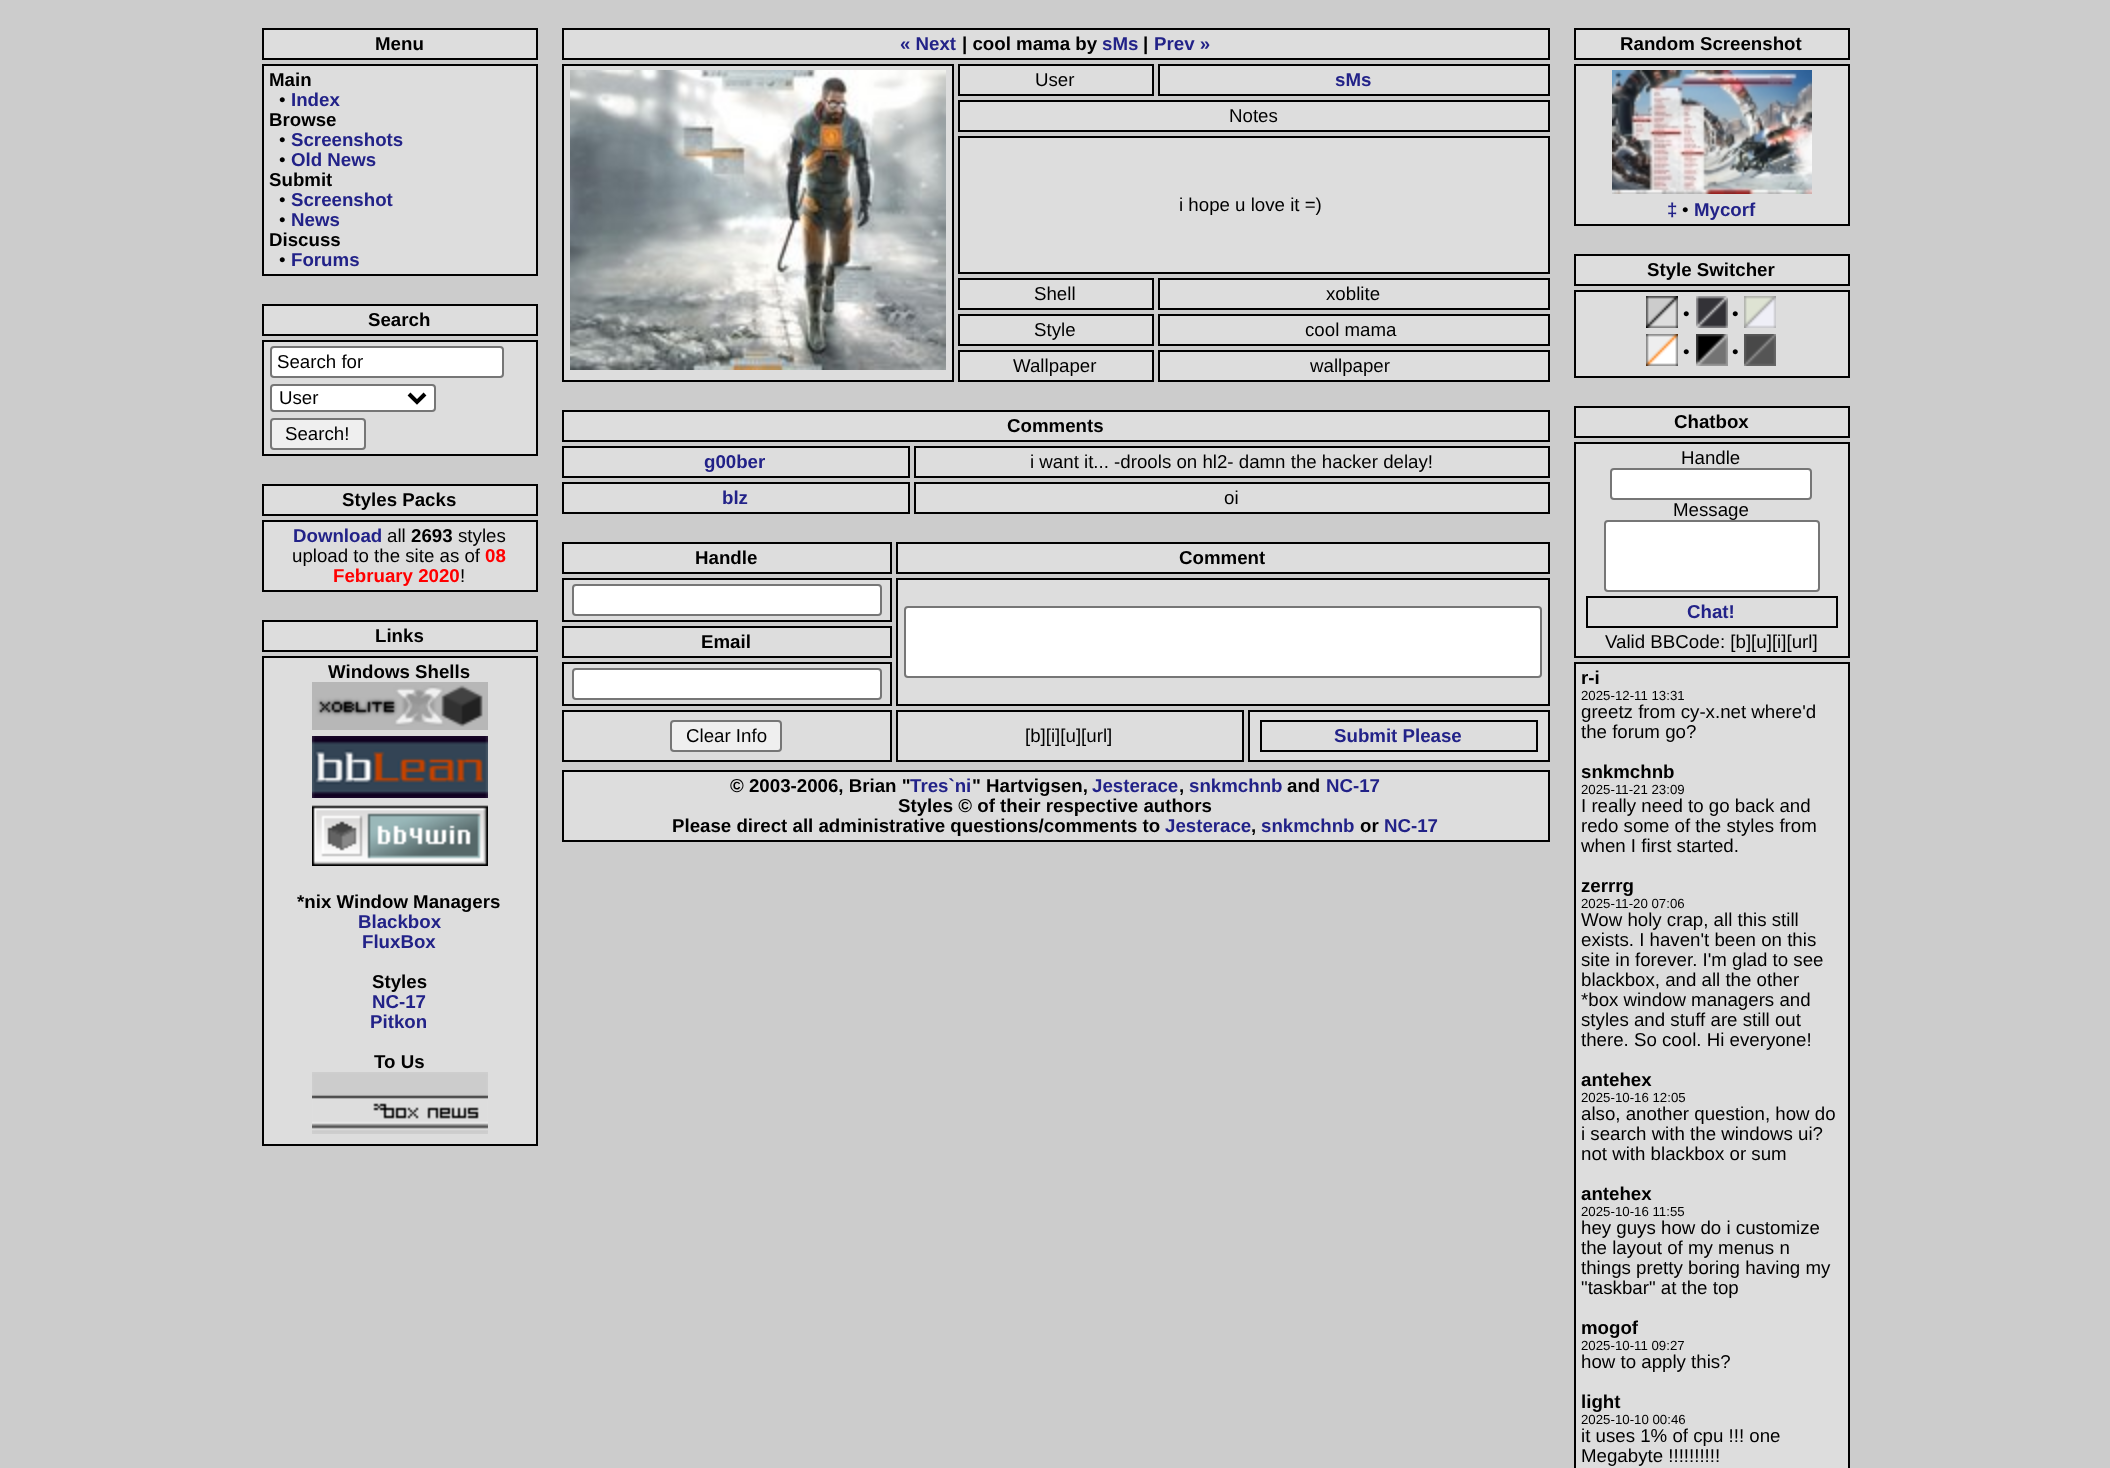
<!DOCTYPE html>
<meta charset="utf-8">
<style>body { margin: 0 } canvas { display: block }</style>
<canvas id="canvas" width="2110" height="1468"></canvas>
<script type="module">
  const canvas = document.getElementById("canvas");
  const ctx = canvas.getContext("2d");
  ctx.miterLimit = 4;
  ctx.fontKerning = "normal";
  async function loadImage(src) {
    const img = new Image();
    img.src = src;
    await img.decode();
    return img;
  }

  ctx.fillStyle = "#cccccc";
  ctx.fillRect(0, 0, 2110, 1468);
  ctx.fillStyle = "#dddddd";
  ctx.beginPath();
  ctx.rect(263, 29, 274, 30);
  ctx.fill();
  ctx.strokeStyle = "#000000";
  ctx.lineWidth = 2;
  ctx.stroke();
  ctx.font = "bold 18.7px Liberation Sans";
  ctx.fillStyle = "#000000";
  ctx.fillText("Menu", 375, 50);
  ctx.fillStyle = "#dddddd";
  ctx.beginPath();
  ctx.rect(263, 65, 274, 210);
  ctx.fill();
  ctx.stroke();
  ctx.fillStyle = "#000000";
  ctx.fillText("Main", 269, 86);
  ctx.font = "18.7px Liberation Sans";
  ctx.fillText("•", 279, 106);
  ctx.font = "bold 18.7px Liberation Sans";
  ctx.fillStyle = "#222288";
  ctx.fillText("Index", 291, 106);
  ctx.fillStyle = "#000000";
  ctx.fillText("Browse", 269, 126);
  ctx.font = "18.7px Liberation Sans";
  ctx.fillText("•", 279, 146);
  ctx.font = "bold 18.7px Liberation Sans";
  ctx.fillStyle = "#222288";
  ctx.fillText("Screenshots", 291, 146);
  ctx.font = "18.7px Liberation Sans";
  ctx.fillStyle = "#000000";
  ctx.fillText("•", 279, 166);
  ctx.font = "bold 18.7px Liberation Sans";
  ctx.fillStyle = "#222288";
  ctx.fillText("Old News", 291, 166);
  ctx.fillStyle = "#000000";
  ctx.fillText("Submit", 269, 186);
  ctx.font = "18.7px Liberation Sans";
  ctx.fillText("•", 279, 206);
  ctx.font = "bold 18.7px Liberation Sans";
  ctx.fillStyle = "#222288";
  ctx.fillText("Screenshot", 291, 206);
  ctx.font = "18.7px Liberation Sans";
  ctx.fillStyle = "#000000";
  ctx.fillText("•", 279, 226);
  ctx.font = "bold 18.7px Liberation Sans";
  ctx.fillStyle = "#222288";
  ctx.fillText("News", 291, 226);
  ctx.fillStyle = "#000000";
  ctx.fillText("Discuss", 269, 246);
  ctx.font = "18.7px Liberation Sans";
  ctx.fillText("•", 279, 266);
  ctx.font = "bold 18.7px Liberation Sans";
  ctx.fillStyle = "#222288";
  ctx.fillText("Forums", 291, 266);
  ctx.fillStyle = "#dddddd";
  ctx.beginPath();
  ctx.rect(263, 305, 274, 30);
  ctx.fill();
  ctx.stroke();
  ctx.fillStyle = "#000000";
  ctx.fillText("Search", 368, 326);
  ctx.fillStyle = "#dddddd";
  ctx.beginPath();
  ctx.rect(263, 341, 274, 114);
  ctx.fill();
  ctx.stroke();
  ctx.fillStyle = "#ffffff";
  ctx.beginPath();
  ctx.roundRect(271, 347, 232, 30, 3);
  ctx.fill();
  ctx.strokeStyle = "#767676";
  ctx.stroke();
  ctx.font = "18.7px Liberation Sans";
  ctx.fillStyle = "#000000";
  ctx.fillText("Search for", 277, 368);
  ctx.fillStyle = "#ffffff";
  ctx.beginPath();
  ctx.roundRect(271, 385, 164, 26, 3);
  ctx.fill();
  ctx.stroke();
  ctx.beginPath();
  ctx.moveTo(409, 394);
  ctx.lineTo(417, 402);
  ctx.lineTo(425, 394);
  ctx.strokeStyle = "#000000";
  ctx.lineWidth = 4;
  ctx.stroke();
  ctx.fillStyle = "#000000";
  ctx.fillText("User", 279, 404);
  ctx.fillStyle = "#efefef";
  ctx.beginPath();
  ctx.roundRect(271, 419, 94, 30, 3);
  ctx.fill();
  ctx.strokeStyle = "#767676";
  ctx.lineWidth = 2;
  ctx.stroke();
  ctx.fillStyle = "#000000";
  ctx.fillText("Search!", 285, 440);
  ctx.fillStyle = "#dddddd";
  ctx.beginPath();
  ctx.rect(263, 485, 274, 30);
  ctx.fill();
  ctx.strokeStyle = "#000000";
  ctx.stroke();
  ctx.font = "bold 18.7px Liberation Sans";
  ctx.fillStyle = "#000000";
  ctx.fillText("Styles Packs", 342, 506);
  ctx.fillStyle = "#dddddd";
  ctx.beginPath();
  ctx.rect(263, 521, 274, 70);
  ctx.fill();
  ctx.stroke();
  ctx.fillStyle = "#222288";
  ctx.fillText("Download", 293, 542);
  ctx.font = "18.7px Liberation Sans";
  ctx.fillStyle = "#000000";
  ctx.fillText("all", 387, 542);
  ctx.font = "bold 18.7px Liberation Sans";
  ctx.fillText("2693", 411, 542);
  ctx.font = "18.7px Liberation Sans";
  ctx.fillText("styles", 458, 542);
  ctx.fillText("upload to the site as of", 292, 562);
  ctx.font = "bold 18.7px Liberation Sans";
  ctx.fillStyle = "#ff0000";
  ctx.fillText("08", 485, 562);
  ctx.fillText("February 2020", 333, 582);
  ctx.font = "18.7px Liberation Sans";
  ctx.fillStyle = "#000000";
  ctx.fillText("!", 460, 582);
  ctx.fillStyle = "#dddddd";
  ctx.beginPath();
  ctx.rect(263, 621, 274, 30);
  ctx.fill();
  ctx.stroke();
  ctx.font = "bold 18.7px Liberation Sans";
  ctx.fillStyle = "#000000";
  ctx.fillText("Links", 375, 642);
  ctx.fillStyle = "#dddddd";
  ctx.beginPath();
  ctx.rect(263, 657, 274, 488);
  ctx.fill();
  ctx.stroke();
  ctx.fillStyle = "#000000";
  ctx.fillText("Windows Shells", 328, 678);
  ctx.drawImage(await loadImage("img1.png"), 312, 682, 176, 48);
  ctx.drawImage(await loadImage("img2.png"), 312, 736, 176, 62);
  ctx.drawImage(await loadImage("img3.png"), 312, 805, 176, 61);
  ctx.fillText("*nix Window Managers", 297, 908);
  ctx.fillStyle = "#222288";
  ctx.fillText("Blackbox", 358, 928);
  ctx.fillText("FluxBox", 362, 948);
  ctx.fillStyle = "#000000";
  ctx.fillText("Styles", 372, 988);
  ctx.fillStyle = "#222288";
  ctx.fillText("NC-17", 372, 1008);
  ctx.fillText("Pitkon", 370, 1028);
  ctx.fillStyle = "#000000";
  ctx.fillText("To Us", 374, 1068);
  ctx.drawImage(await loadImage("img4.png"), 312, 1072, 176, 62);
  ctx.fillStyle = "#dddddd";
  ctx.beginPath();
  ctx.rect(563, 29, 986, 30);
  ctx.fill();
  ctx.stroke();
  ctx.fillStyle = "#222288";
  ctx.fillText("« Next", 900, 50);
  ctx.fillStyle = "#000000";
  ctx.fillText("| cool mama by", 962, 50);
  ctx.fillStyle = "#222288";
  ctx.fillText("sMs", 1102, 50);
  ctx.fillStyle = "#000000";
  ctx.fillText("|", 1143, 50);
  ctx.fillStyle = "#222288";
  ctx.fillText("Prev »", 1154, 50);
  ctx.fillStyle = "#dddddd";
  ctx.beginPath();
  ctx.rect(563, 65, 390, 316);
  ctx.fill();
  ctx.stroke();
  ctx.drawImage(await loadImage("img5.png"), 570, 70, 376, 300);
  ctx.beginPath();
  ctx.rect(959, 65, 194, 30);
  ctx.fill();
  ctx.stroke();
  ctx.font = "18.7px Liberation Sans";
  ctx.fillStyle = "#000000";
  ctx.fillText("User", 1035, 86);
  ctx.fillStyle = "#dddddd";
  ctx.beginPath();
  ctx.rect(1159, 65, 390, 30);
  ctx.fill();
  ctx.stroke();
  ctx.font = "bold 18.7px Liberation Sans";
  ctx.fillStyle = "#222288";
  ctx.fillText("sMs", 1335, 86);
  ctx.fillStyle = "#dddddd";
  ctx.beginPath();
  ctx.rect(959, 101, 590, 30);
  ctx.fill();
  ctx.stroke();
  ctx.font = "18.7px Liberation Sans";
  ctx.fillStyle = "#000000";
  ctx.fillText("Notes", 1229, 122);
  ctx.fillStyle = "#dddddd";
  ctx.beginPath();
  ctx.rect(959, 137, 590, 136);
  ctx.fill();
  ctx.stroke();
  ctx.fillStyle = "#000000";
  ctx.fillText("i hope u love it =)", 1179, 211);
  ctx.fillStyle = "#dddddd";
  ctx.beginPath();
  ctx.rect(959, 279, 194, 30);
  ctx.fill();
  ctx.stroke();
  ctx.fillStyle = "#000000";
  ctx.fillText("Shell", 1034, 300);
  ctx.fillStyle = "#dddddd";
  ctx.beginPath();
  ctx.rect(1159, 279, 390, 30);
  ctx.fill();
  ctx.stroke();
  ctx.fillStyle = "#000000";
  ctx.fillText("xoblite", 1326, 300);
  ctx.fillStyle = "#dddddd";
  ctx.beginPath();
  ctx.rect(959, 315, 194, 30);
  ctx.fill();
  ctx.stroke();
  ctx.fillStyle = "#000000";
  ctx.fillText("Style", 1034, 336);
  ctx.fillStyle = "#dddddd";
  ctx.beginPath();
  ctx.rect(1159, 315, 390, 30);
  ctx.fill();
  ctx.stroke();
  ctx.fillStyle = "#000000";
  ctx.fillText("cool mama", 1305, 336);
  ctx.fillStyle = "#dddddd";
  ctx.beginPath();
  ctx.rect(959, 351, 194, 30);
  ctx.fill();
  ctx.stroke();
  ctx.fillStyle = "#000000";
  ctx.fillText("Wallpaper", 1013, 372);
  ctx.fillStyle = "#dddddd";
  ctx.beginPath();
  ctx.rect(1159, 351, 390, 30);
  ctx.fill();
  ctx.stroke();
  ctx.fillStyle = "#000000";
  ctx.fillText("wallpaper", 1310, 372);
  ctx.fillStyle = "#dddddd";
  ctx.beginPath();
  ctx.rect(563, 411, 986, 30);
  ctx.fill();
  ctx.stroke();
  ctx.font = "bold 18.7px Liberation Sans";
  ctx.fillStyle = "#000000";
  ctx.fillText("Comments", 1007, 432);
  ctx.fillStyle = "#dddddd";
  ctx.beginPath();
  ctx.rect(563, 447, 346, 30);
  ctx.fill();
  ctx.stroke();
  ctx.fillStyle = "#222288";
  ctx.fillText("g00ber", 704, 468);
  ctx.fillStyle = "#dddddd";
  ctx.beginPath();
  ctx.rect(915, 447, 634, 30);
  ctx.fill();
  ctx.stroke();
  ctx.font = "18.7px Liberation Sans";
  ctx.fillStyle = "#000000";
  ctx.fillText("i want it... -drools on hl2- damn the hacker delay!", 1030, 468);
  ctx.fillStyle = "#dddddd";
  ctx.beginPath();
  ctx.rect(563, 483, 346, 30);
  ctx.fill();
  ctx.stroke();
  ctx.font = "bold 18.7px Liberation Sans";
  ctx.fillStyle = "#222288";
  ctx.fillText("blz", 722, 504);
  ctx.fillStyle = "#dddddd";
  ctx.beginPath();
  ctx.rect(915, 483, 634, 30);
  ctx.fill();
  ctx.stroke();
  ctx.font = "18.7px Liberation Sans";
  ctx.fillStyle = "#000000";
  ctx.fillText("oi", 1224, 504);
  ctx.fillStyle = "#dddddd";
  ctx.beginPath();
  ctx.rect(563, 543, 328, 30);
  ctx.fill();
  ctx.stroke();
  ctx.font = "bold 18.7px Liberation Sans";
  ctx.fillStyle = "#000000";
  ctx.fillText("Handle", 695, 564);
  ctx.fillStyle = "#dddddd";
  ctx.beginPath();
  ctx.rect(897, 543, 652, 30);
  ctx.fill();
  ctx.stroke();
  ctx.fillStyle = "#000000";
  ctx.fillText("Comment", 1179, 564);
  ctx.fillStyle = "#dddddd";
  ctx.beginPath();
  ctx.rect(563, 579, 328, 42);
  ctx.fill();
  ctx.stroke();
  ctx.fillStyle = "#ffffff";
  ctx.beginPath();
  ctx.roundRect(573, 585, 308, 30, 3);
  ctx.fill();
  ctx.strokeStyle = "#767676";
  ctx.stroke();
  ctx.fillStyle = "#dddddd";
  ctx.beginPath();
  ctx.rect(897, 579, 652, 126);
  ctx.fill();
  ctx.strokeStyle = "#000000";
  ctx.stroke();
  ctx.fillStyle = "#ffffff";
  ctx.beginPath();
  ctx.roundRect(905, 607, 636, 70, 3);
  ctx.fill();
  ctx.strokeStyle = "#767676";
  ctx.stroke();
  ctx.fillStyle = "#dddddd";
  ctx.beginPath();
  ctx.rect(563, 627, 328, 30);
  ctx.fill();
  ctx.strokeStyle = "#000000";
  ctx.stroke();
  ctx.fillStyle = "#000000";
  ctx.fillText("Email", 701, 648);
  ctx.fillStyle = "#dddddd";
  ctx.beginPath();
  ctx.rect(563, 663, 328, 42);
  ctx.fill();
  ctx.stroke();
  ctx.fillStyle = "#ffffff";
  ctx.beginPath();
  ctx.roundRect(573, 669, 308, 30, 3);
  ctx.fill();
  ctx.strokeStyle = "#767676";
  ctx.stroke();
  ctx.fillStyle = "#dddddd";
  ctx.beginPath();
  ctx.rect(563, 711, 328, 50);
  ctx.fill();
  ctx.strokeStyle = "#000000";
  ctx.stroke();
  ctx.fillStyle = "#efefef";
  ctx.beginPath();
  ctx.roundRect(671, 721, 110, 30, 3);
  ctx.fill();
  ctx.strokeStyle = "#767676";
  ctx.stroke();
  ctx.font = "18.7px Liberation Sans";
  ctx.fillStyle = "#000000";
  ctx.fillText("Clear Info", 686, 742);
  ctx.fillStyle = "#dddddd";
  ctx.beginPath();
  ctx.rect(897, 711, 346, 50);
  ctx.fill();
  ctx.strokeStyle = "#000000";
  ctx.stroke();
  ctx.fillStyle = "#000000";
  ctx.fillText("[b][i][u][url]", 1025, 742);
  ctx.fillStyle = "#dddddd";
  ctx.beginPath();
  ctx.rect(1249, 711, 300, 50);
  ctx.fill();
  ctx.stroke();
  ctx.strokeRect(1261, 721, 276, 30);
  ctx.font = "bold 18.7px Liberation Sans";
  ctx.fillStyle = "#222288";
  ctx.fillText("Submit Please", 1334, 742);
  ctx.fillStyle = "#dddddd";
  ctx.beginPath();
  ctx.rect(563, 771, 986, 70);
  ctx.fill();
  ctx.stroke();
  ctx.fillStyle = "#000000";
  ctx.fillText("© 2003-2006, Brian \"", 730, 792);
  ctx.fillStyle = "#222288";
  ctx.fillText("Tres`ni", 910, 792);
  ctx.fillStyle = "#000000";
  ctx.fillText("\" Hartvigsen,", 972, 792);
  ctx.fillStyle = "#222288";
  ctx.fillText("Jesterace", 1092, 792);
  ctx.fillStyle = "#000000";
  ctx.fillText(",", 1179, 792);
  ctx.fillStyle = "#222288";
  ctx.fillText("snkmchnb", 1189, 792);
  ctx.fillStyle = "#000000";
  ctx.fillText("and", 1287, 792);
  ctx.fillStyle = "#222288";
  ctx.fillText("NC-17", 1326, 792);
  ctx.fillStyle = "#000000";
  ctx.fillText("Styles © of their respective authors", 898, 812);
  ctx.fillText("Please direct all administrative questions/comments to", 672, 832);
  ctx.fillStyle = "#222288";
  ctx.fillText("Jesterace", 1165, 832);
  ctx.fillStyle = "#000000";
  ctx.fillText(",", 1251, 832);
  ctx.fillStyle = "#222288";
  ctx.fillText("snkmchnb", 1261, 832);
  ctx.fillStyle = "#000000";
  ctx.fillText("or", 1360, 832);
  ctx.fillStyle = "#222288";
  ctx.fillText("NC-17", 1384, 832);
  ctx.fillStyle = "#dddddd";
  ctx.beginPath();
  ctx.rect(1575, 29, 274, 30);
  ctx.fill();
  ctx.stroke();
  ctx.fillStyle = "#000000";
  ctx.fillText("Random Screenshot", 1620, 50);
  ctx.fillStyle = "#dddddd";
  ctx.beginPath();
  ctx.rect(1575, 65, 274, 160);
  ctx.fill();
  ctx.stroke();
  ctx.drawImage(await loadImage("img6.png"), 1612, 70, 200, 124);
  ctx.fillStyle = "#222288";
  ctx.fillText("‡", 1667, 216);
  ctx.font = "18.7px Liberation Sans";
  ctx.fillStyle = "#000000";
  ctx.fillText("•", 1682, 216);
  ctx.font = "bold 18.7px Liberation Sans";
  ctx.fillStyle = "#222288";
  ctx.fillText("Mycorf", 1694, 216);
  ctx.fillStyle = "#dddddd";
  ctx.beginPath();
  ctx.rect(1575, 255, 274, 30);
  ctx.fill();
  ctx.stroke();
  ctx.fillStyle = "#000000";
  ctx.fillText("Style Switcher", 1647, 276);
  ctx.fillStyle = "#dddddd";
  ctx.beginPath();
  ctx.rect(1575, 291, 274, 86);
  ctx.fill();
  ctx.stroke();
  ctx.drawImage(await loadImage("img7.png"), 1646, 296, 32, 32);
  ctx.font = "18.7px Liberation Sans";
  ctx.fillStyle = "#000000";
  ctx.fillText("•", 1683, 320);
  ctx.drawImage(await loadImage("img8.png"), 1696, 296, 32, 32);
  ctx.fillText("•", 1732, 320);
  ctx.drawImage(await loadImage("img9.png"), 1744, 296, 32, 32);
  ctx.drawImage(await loadImage("img10.png"), 1646, 334, 32, 32);
  ctx.fillText("•", 1683, 358);
  ctx.drawImage(await loadImage("img11.png"), 1696, 334, 32, 32);
  ctx.fillText("•", 1732, 358);
  ctx.drawImage(await loadImage("img12.png"), 1744, 334, 32, 32);
  ctx.fillStyle = "#dddddd";
  ctx.beginPath();
  ctx.rect(1575, 407, 274, 30);
  ctx.fill();
  ctx.stroke();
  ctx.font = "bold 18.7px Liberation Sans";
  ctx.fillStyle = "#000000";
  ctx.fillText("Chatbox", 1674, 428);
  ctx.fillStyle = "#dddddd";
  ctx.beginPath();
  ctx.rect(1575, 443, 274, 214);
  ctx.fill();
  ctx.stroke();
  ctx.font = "18.7px Liberation Sans";
  ctx.fillStyle = "#000000";
  ctx.fillText("Handle", 1681, 464);
  ctx.fillStyle = "#ffffff";
  ctx.beginPath();
  ctx.roundRect(1611, 469, 200, 30, 3);
  ctx.fill();
  ctx.strokeStyle = "#767676";
  ctx.stroke();
  ctx.fillStyle = "#000000";
  ctx.fillText("Message", 1673, 516);
  ctx.fillStyle = "#ffffff";
  ctx.beginPath();
  ctx.roundRect(1605, 521, 214, 70, 3);
  ctx.fill();
  ctx.stroke();
  ctx.strokeStyle = "#000000";
  ctx.strokeRect(1587, 597, 250, 30);
  ctx.font = "bold 18.7px Liberation Sans";
  ctx.fillStyle = "#222288";
  ctx.fillText("Chat!", 1687, 618);
  ctx.font = "18.7px Liberation Sans";
  ctx.fillStyle = "#000000";
  ctx.fillText("Valid BBCode: [b][u][i][url]", 1605, 648);
  ctx.fillStyle = "#dddddd";
  ctx.beginPath();
  ctx.rect(1575, 663, 274, 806);
  ctx.fill();
  ctx.stroke();
  ctx.font = "bold 18.7px Liberation Sans";
  ctx.fillStyle = "#000000";
  ctx.fillText("r-i", 1581, 684);
  ctx.font = "13.25px Liberation Sans";
  ctx.fillText("2025-12-11 13:31", 1581, 700);
  ctx.font = "18.7px Liberation Sans";
  ctx.fillText("greetz from cy-x.net where'd", 1581, 718);
  ctx.fillText("the forum go?", 1581, 738);
  ctx.font = "bold 18.7px Liberation Sans";
  ctx.fillText("snkmchnb", 1581, 778);
  ctx.font = "13.25px Liberation Sans";
  ctx.fillText("2025-11-21 23:09", 1581, 794);
  ctx.font = "18.7px Liberation Sans";
  ctx.fillText("I really need to go back and", 1581, 812);
  ctx.fillText("redo some of the styles from", 1581, 832);
  ctx.fillText("when I first started.", 1581, 852);
  ctx.font = "bold 18.7px Liberation Sans";
  ctx.fillText("zerrrg", 1581, 892);
  ctx.font = "13.25px Liberation Sans";
  ctx.fillText("2025-11-20 07:06", 1581, 908);
  ctx.font = "18.7px Liberation Sans";
  ctx.fillText("Wow holy crap, all this still", 1581, 926);
  ctx.fillText("exists. I haven't been on this", 1581, 946);
  ctx.fillText("site in forever. I'm glad to see", 1581, 966);
  ctx.fillText("blackbox, and all the other", 1581, 986);
  ctx.fillText("*box window managers and", 1581, 1006);
  ctx.fillText("styles and stuff are still out", 1581, 1026);
  ctx.fillText("there. So cool. Hi everyone!", 1581, 1046);
  ctx.font = "bold 18.7px Liberation Sans";
  ctx.fillText("antehex", 1581, 1086);
  ctx.font = "13.25px Liberation Sans";
  ctx.fillText("2025-10-16 12:05", 1581, 1102);
  ctx.font = "18.7px Liberation Sans";
  ctx.fillText("also, another question, how do", 1581, 1120);
  ctx.fillText("i search with the windows ui?", 1581, 1140);
  ctx.fillText("not with blackbox or sum", 1581, 1160);
  ctx.font = "bold 18.7px Liberation Sans";
  ctx.fillText("antehex", 1581, 1200);
  ctx.font = "13.25px Liberation Sans";
  ctx.fillText("2025-10-16 11:55", 1581, 1216);
  ctx.font = "18.7px Liberation Sans";
  ctx.fillText("hey guys how do i customize", 1581, 1234);
  ctx.fillText("the layout of my menus n", 1581, 1254);
  ctx.fillText("things pretty boring having my", 1581, 1274);
  ctx.fillText("\"taskbar\" at the top", 1581, 1294);
  ctx.font = "bold 18.7px Liberation Sans";
  ctx.fillText("mogof", 1581, 1334);
  ctx.font = "13.25px Liberation Sans";
  ctx.fillText("2025-10-11 09:27", 1581, 1350);
  ctx.font = "18.7px Liberation Sans";
  ctx.fillText("how to apply this?", 1581, 1368);
  ctx.font = "bold 18.7px Liberation Sans";
  ctx.fillText("light", 1581, 1408);
  ctx.font = "13.25px Liberation Sans";
  ctx.fillText("2025-10-10 00:46", 1581, 1424);
  ctx.font = "18.7px Liberation Sans";
  ctx.fillText("it uses 1% of cpu !!! one", 1581, 1442);
  ctx.fillText("Megabyte !!!!!!!!!!", 1581, 1462);
</script>
